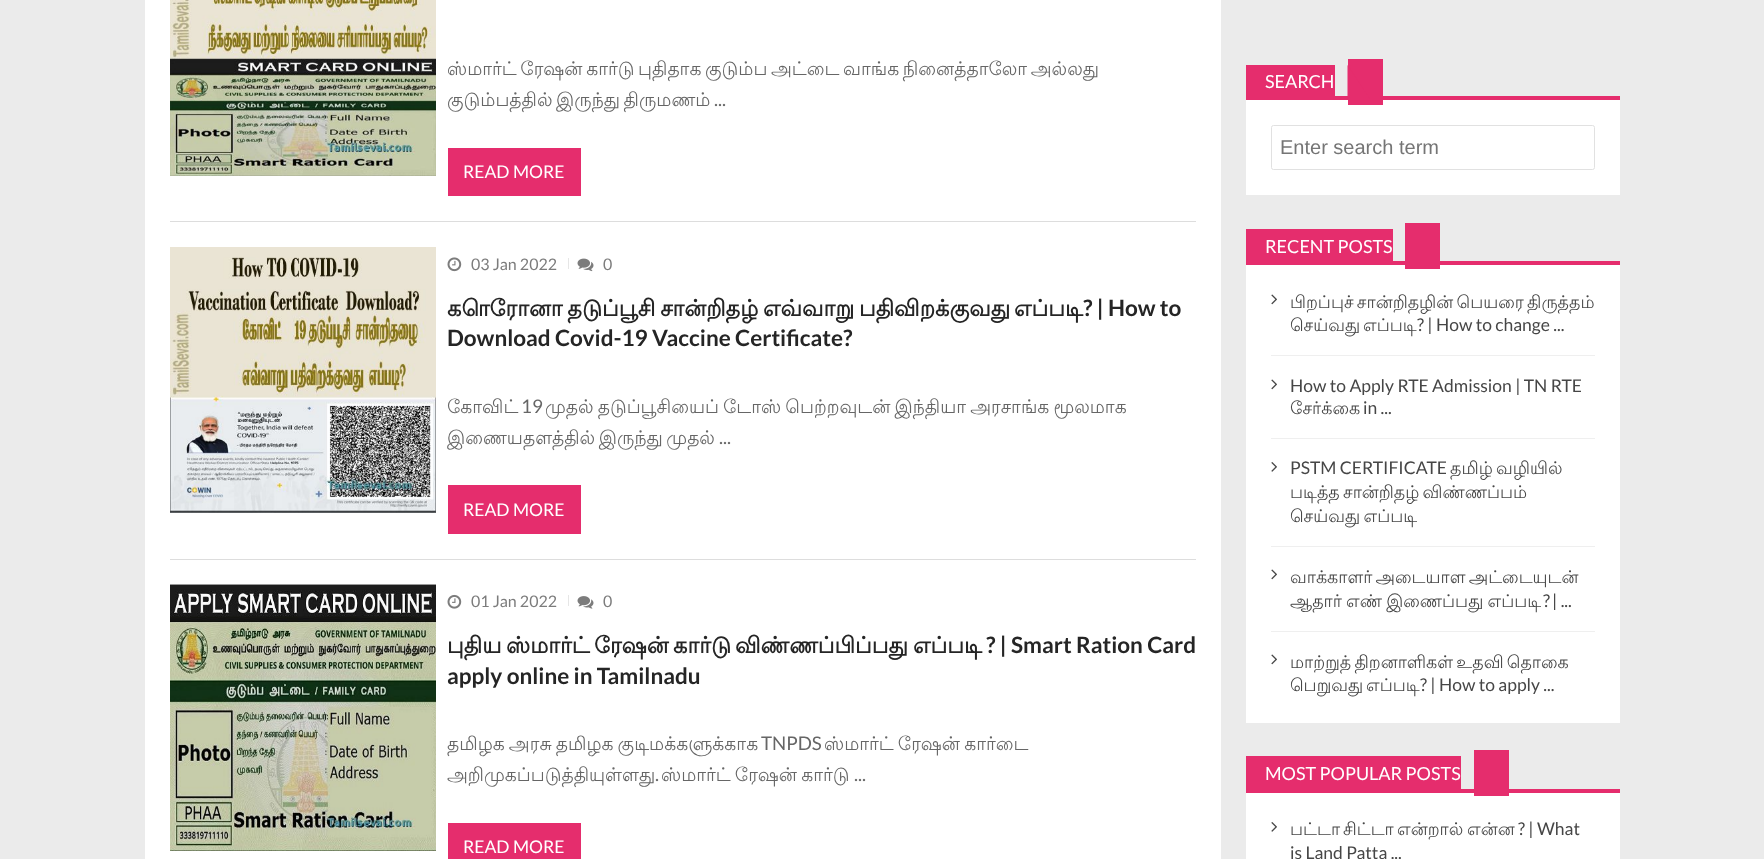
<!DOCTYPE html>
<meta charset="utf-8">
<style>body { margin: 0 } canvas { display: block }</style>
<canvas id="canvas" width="1764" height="859"></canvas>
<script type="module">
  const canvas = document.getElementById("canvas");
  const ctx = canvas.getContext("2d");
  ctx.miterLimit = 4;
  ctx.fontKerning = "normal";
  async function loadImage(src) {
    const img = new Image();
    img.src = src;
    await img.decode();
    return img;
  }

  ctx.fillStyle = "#ebebeb";
  ctx.fillRect(0, 0, 1764, 859);
  ctx.fillStyle = "#ffffff";
  ctx.fillRect(145, 0, 1076, 859);
  ctx.fillStyle = "#dddddd";
  ctx.fillRect(170, 221, 1026, 1);
  ctx.drawImage(await loadImage("img1.png"), 170, 0, 266, 176);
  ctx.wordSpacing = "-2px";
  ctx.font = "18.75px Lohit Tamil";
  ctx.fillStyle = "#666666";
  ctx.fillText("ஸ்மார்ட் ரேஷன் கார்டு புதிதாக குடும்ப அட்டை வாங்க நினைத்தாலோ அல்லது", 447, 75);
  ctx.fillText("குடும்பத்தில் இருந்து திருமணம்", 447, 106);
  ctx.wordSpacing = "0px";
  ctx.font = "18.75px Lato";
  ctx.fillText("...", 714, 106);
  ctx.fillStyle = "#e52d6d";
  ctx.fillRect(448, 148, 133, 48);
  ctx.font = "17.5px Lato";
  ctx.fillStyle = "#ffffff";
  ctx.fillText("READ MORE", 463, 178);
  ctx.fillStyle = "#dddddd";
  ctx.fillRect(170, 559, 1026, 1);
  ctx.drawImage(await loadImage("img2.png"), 170, 247, 266, 266);
  ctx.drawImage(await loadImage("img3.png"), 447, 257, 15, 15);
  ctx.font = "16px Lato";
  ctx.fillStyle = "#7c7c7c";
  ctx.fillText("03 Jan 2022", 471, 270);
  ctx.fillStyle = "#e6e6e6";
  ctx.fillRect(568, 258, 1, 11);
  ctx.drawImage(await loadImage("img4.png"), 577, 258, 17, 14);
  ctx.fillStyle = "#7c7c7c";
  ctx.fillText("0", 603, 270);
  ctx.wordSpacing = "-2px";
  ctx.font = "bold 22.5px Lohit Tamil";
  ctx.fillStyle = "#252525";
  ctx.fillText("கொரோனா தடுப்பூசி சான்றிதழ்", 447, 316);
  ctx.fillText("எவ்வாறு பதிவிறக்குவது", 763, 316);
  ctx.wordSpacing = "0px";
  ctx.fillText("எப்படி", 1014, 316);
  ctx.font = "bold 22.5px Lato";
  ctx.fillText("? | How to", 1083, 316);
  ctx.fillText("Download Covid-19 Vaccine Certificate?", 447, 346);
  ctx.font = "18.75px Lohit Tamil";
  ctx.fillStyle = "#666666";
  ctx.fillText("கோவிட்", 447, 413);
  ctx.font = "18.75px Lato";
  ctx.fillText("19", 521, 413);
  ctx.wordSpacing = "-1.5px";
  ctx.font = "18.75px Lohit Tamil";
  ctx.fillText("முதல் தடுப்பூசியைப் டோஸ் பெற்றவுடன் இந்தியா அரசாங்க மூலமாக", 545, 413);
  ctx.wordSpacing = "-2px";
  ctx.fillText("இணையதளத்தில் இருந்து முதல்", 447, 444);
  ctx.wordSpacing = "0px";
  ctx.font = "18.75px Lato";
  ctx.fillText("...", 719, 444);
  ctx.fillStyle = "#e52d6d";
  ctx.fillRect(448, 485, 133, 49);
  ctx.font = "17.5px Lato";
  ctx.fillStyle = "#ffffff";
  ctx.fillText("READ MORE", 463, 516);
  ctx.drawImage(await loadImage("img5.png"), 170, 584, 266, 267);
  ctx.drawImage(await loadImage("img6.png"), 447, 594, 15, 15);
  ctx.font = "16px Lato";
  ctx.fillStyle = "#7c7c7c";
  ctx.fillText("01 Jan 2022", 471, 607);
  ctx.fillStyle = "#e6e6e6";
  ctx.fillRect(568, 595, 1, 11);
  ctx.drawImage(await loadImage("img7.png"), 577, 596, 17, 13);
  ctx.fillStyle = "#7c7c7c";
  ctx.fillText("0", 603, 607);
  ctx.font = "bold 22.5px Lohit Tamil";
  ctx.fillStyle = "#252525";
  ctx.fillText("புதிய", 447, 653);
  ctx.fillText("ஸ்மார்ட்", 506, 653);
  ctx.fillText("ரேஷன்", 594, 653);
  ctx.fillText("கார்டு", 673, 653);
  ctx.fillText("விண்ணப்பிப்பது", 735, 653);
  ctx.fillText("எப்படி", 913, 653);
  ctx.font = "bold 22.5px Lato";
  ctx.fillText("? | Smart Ration Card", 986, 653);
  ctx.fillText("apply online in Tamilnadu", 447, 684);
  ctx.wordSpacing = "-1.5px";
  ctx.font = "18.75px Lohit Tamil";
  ctx.fillStyle = "#666666";
  ctx.fillText("தமிழக அரசு தமிழக குடிமக்களுக்காக", 447, 750);
  ctx.wordSpacing = "0px";
  ctx.font = "18.75px Lato";
  ctx.fillText("TNPDS", 761, 750);
  ctx.wordSpacing = "-1.5px";
  ctx.font = "18.75px Lohit Tamil";
  ctx.fillText("ஸ்மார்ட் ரேஷன் கார்டை", 824, 750);
  ctx.wordSpacing = "0px";
  ctx.fillText("அறிமுகப்படுத்தியுள்ளது", 447, 781);
  ctx.font = "18.75px Lato";
  ctx.fillText(".", 655, 781);
  ctx.wordSpacing = "-1.5px";
  ctx.font = "18.75px Lohit Tamil";
  ctx.fillText("ஸ்மார்ட் ரேஷன் கார்டு", 661, 781);
  ctx.wordSpacing = "0px";
  ctx.font = "18.75px Lato";
  ctx.fillText("...", 854, 781);
  ctx.fillStyle = "#e52d6d";
  ctx.fillRect(448, 823, 133, 36);
  ctx.font = "17.5px Lato";
  ctx.fillStyle = "#ffffff";
  ctx.fillText("READ MORE", 463, 853);
  ctx.fillStyle = "#e52d6d";
  ctx.fillRect(1246, 65, 89, 31);
  ctx.fillRect(1246, 96, 374, 4);
  ctx.fillStyle = "#ffffff";
  ctx.fillRect(1246, 100, 374, 95);
  ctx.fillStyle = "#e52d6d";
  ctx.fillRect(1348, 59, 35, 46);
  ctx.font = "18px Lato";
  ctx.fillStyle = "#ffffff";
  ctx.fillText("SEARCH", 1265, 88);
  ctx.fillStyle = "#e52d6d";
  ctx.beginPath();
  ctx.moveTo(1347.5, 99);
  ctx.lineTo(1347.5, 65);
  ctx.lineTo(1370, 99);
  ctx.closePath();
  ctx.fill();
  ctx.beginPath();
  ctx.roundRect(1271.5, 125.5, 323, 44, 2);
  ctx.strokeStyle = "#e1e1e1";
  ctx.stroke();
  ctx.font = "20px Liberation Sans";
  ctx.fillStyle = "#757575";
  ctx.fillText("Enter search term", 1280, 154);
  ctx.fillStyle = "#e52d6d";
  ctx.fillRect(1246, 229, 147, 32);
  ctx.font = "18px Lato";
  ctx.fillStyle = "#ffffff";
  ctx.fillText("RECENT POSTS", 1265, 253);
  ctx.fillStyle = "#e52d6d";
  ctx.fillRect(1246, 261, 374, 4);
  ctx.fillStyle = "#ffffff";
  ctx.fillRect(1246, 265, 374, 458);
  ctx.fillStyle = "#e52d6d";
  ctx.fillRect(1405, 223, 35, 46);
  ctx.fillStyle = "#efefef";
  ctx.fillRect(1271, 355, 324, 1);
  ctx.drawImage(await loadImage("img8.png"), 1271, 294, 6, 11);
  ctx.wordSpacing = "-2px";
  ctx.font = "17.5px Lohit Tamil";
  ctx.fillStyle = "#464646";
  ctx.fillText("பிறப்புச் சான்றிதழின் பெயரை திருத்தம்", 1290, 308);
  ctx.wordSpacing = "0px";
  ctx.fillText("செய்வது", 1290, 331);
  ctx.fillText("எப்படி", 1363, 331);
  ctx.font = "17.5px Lato";
  ctx.fillText("? | How to change ...", 1417, 331);
  ctx.fillStyle = "#efefef";
  ctx.fillRect(1271, 438, 324, 1);
  ctx.drawImage(await loadImage("img8.png"), 1271, 379, 6, 11);
  ctx.fillStyle = "#464646";
  ctx.fillText("How to Apply RTE Admission | TN RTE", 1290, 392);
  ctx.font = "17.5px Lohit Tamil";
  ctx.fillText("சேர்க்கை", 1290, 414);
  ctx.font = "17.5px Lato";
  ctx.fillText("in ...", 1363, 414);
  ctx.fillStyle = "#efefef";
  ctx.fillRect(1271, 546, 324, 1);
  ctx.drawImage(await loadImage("img9.png"), 1271, 462, 6, 10);
  ctx.fillStyle = "#464646";
  ctx.fillText("PSTM CERTIFICATE", 1290, 474);
  ctx.font = "17.5px Lohit Tamil";
  ctx.fillText("தமிழ்", 1450, 474);
  ctx.fillText("வழியில்", 1496, 474);
  ctx.wordSpacing = "-2px";
  ctx.fillText("படித்த சான்றிதழ் விண்ணப்பம்", 1290, 498);
  ctx.fillText("செய்வது எப்படி", 1290, 522);
  ctx.fillStyle = "#efefef";
  ctx.fillRect(1271, 631, 324, 1);
  ctx.drawImage(await loadImage("img8.png"), 1271, 569, 6, 11);
  ctx.fillStyle = "#464646";
  ctx.fillText("வாக்காளர் அடையாள அட்டையுடன்", 1290, 583);
  ctx.wordSpacing = "-1px";
  ctx.fillText("ஆதார் எண் இணைப்பது எப்படி", 1290, 607);
  ctx.wordSpacing = "0px";
  ctx.font = "17.5px Lato";
  ctx.fillText("?", 1543, 607);
  ctx.fillText("| ...", 1552, 607);
  ctx.drawImage(await loadImage("img8.png"), 1271, 654, 6, 11);
  ctx.wordSpacing = "-2px";
  ctx.font = "17.5px Lohit Tamil";
  ctx.fillText("மாற்றுத் திறனாளிகள் உதவி தொகை", 1290, 668);
  ctx.wordSpacing = "0px";
  ctx.fillText("பெறுவது", 1290, 691);
  ctx.fillText("எப்படி", 1366, 691);
  ctx.font = "17.5px Lato";
  ctx.fillText("? | How to apply ...", 1420, 691);
  ctx.fillStyle = "#e52d6d";
  ctx.fillRect(1246, 756, 215, 33);
  ctx.font = "18px Lato";
  ctx.fillStyle = "#ffffff";
  ctx.fillText("MOST POPULAR POSTS", 1265, 780);
  ctx.fillStyle = "#e52d6d";
  ctx.fillRect(1246, 789, 374, 4);
  ctx.fillStyle = "#ffffff";
  ctx.fillRect(1246, 793, 374, 66);
  ctx.fillStyle = "#e52d6d";
  ctx.fillRect(1474, 750, 35, 46);
  ctx.drawImage(await loadImage("img9.png"), 1271, 822, 6, 10);
  ctx.font = "17.5px Lohit Tamil";
  ctx.fillStyle = "#464646";
  ctx.fillText("பட்டா", 1290, 835);
  ctx.fillText("சிட்டா", 1343, 835);
  ctx.fillText("என்றால்", 1397, 835);
  ctx.fillText("என்ன", 1467, 835);
  ctx.font = "17.5px Lato";
  ctx.fillText("? | What", 1518, 835);
  ctx.fillText("is Land Patta ...", 1290, 859);
</script>
